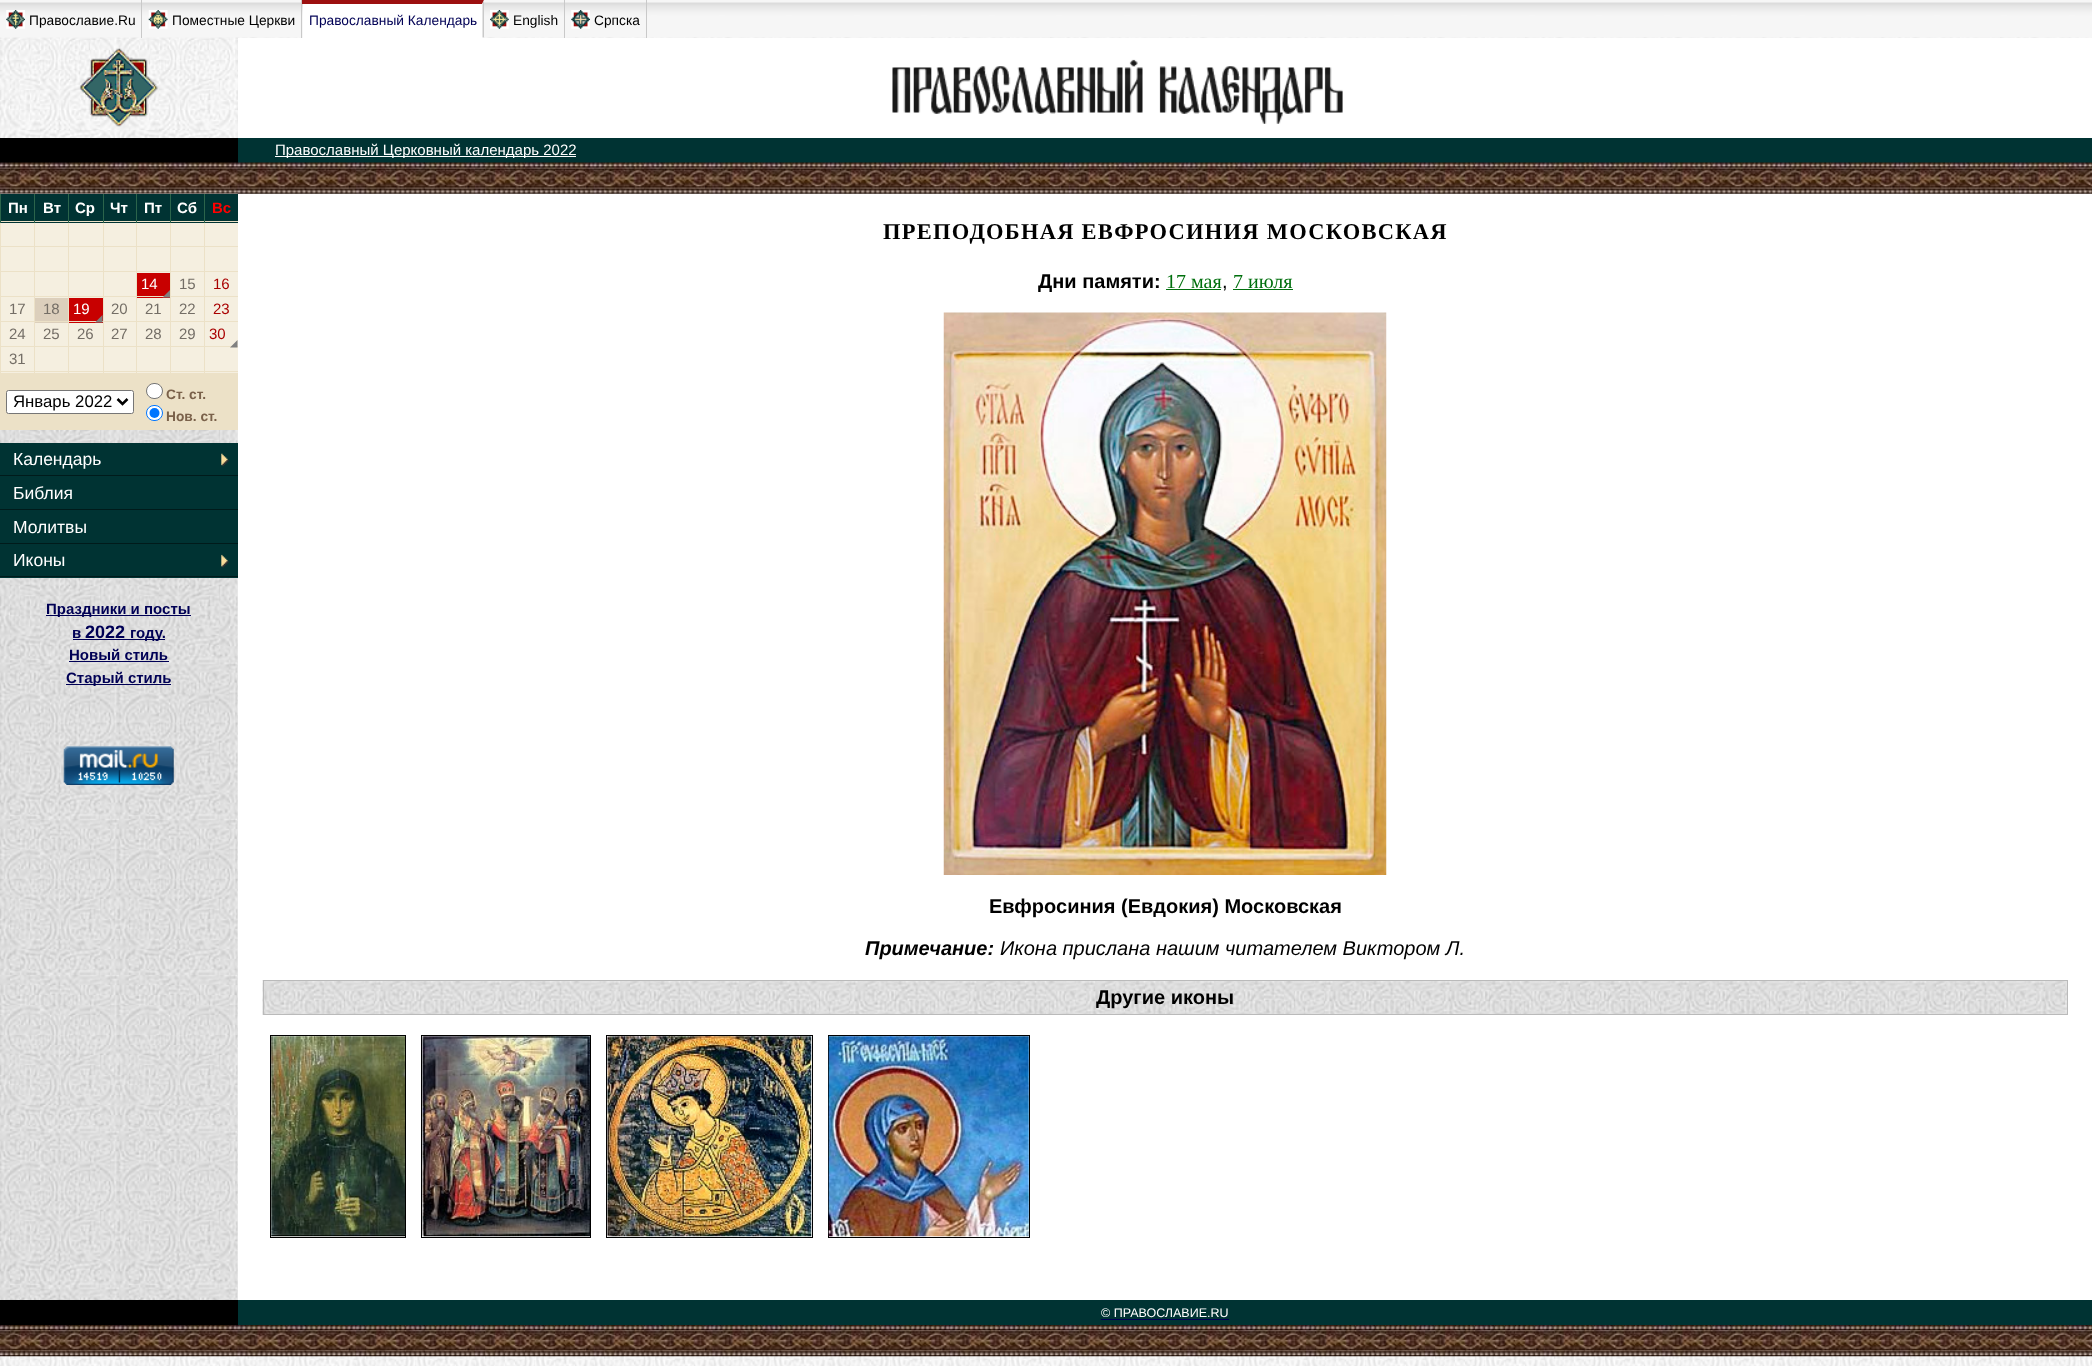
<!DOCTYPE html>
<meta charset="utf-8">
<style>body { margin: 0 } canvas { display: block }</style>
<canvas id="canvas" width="2092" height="1366"></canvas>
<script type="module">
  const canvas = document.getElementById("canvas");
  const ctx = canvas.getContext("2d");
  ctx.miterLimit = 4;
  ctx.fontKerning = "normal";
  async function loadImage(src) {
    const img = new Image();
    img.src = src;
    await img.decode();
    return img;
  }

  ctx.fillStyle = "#ffffff";
  ctx.fillRect(0, 0, 2092, 1366);
  ctx.drawImage(await loadImage("img1.png"), 0, 37, 2092, 1329);
  ctx.drawImage(await loadImage("img2.png"), 0, 0, 2092, 38);
  ctx.fillStyle = "#c9c9c9";
  ctx.fillRect(141, 0, 1, 38);
  ctx.drawImage(await loadImage("img3.png"), 6, 10, 19, 19);
  ctx.font = "13.75px Liberation Sans";
  ctx.fillStyle = "#000000";
  ctx.fillText("Православие.Ru", 29, 25);
  ctx.fillStyle = "#c9c9c9";
  ctx.fillRect(301, 0, 1, 38);
  ctx.drawImage(await loadImage("img4.png"), 148, 10, 20, 19);
  ctx.fillStyle = "#000000";
  ctx.fillText("Поместные Церкви", 172, 25);
  ctx.fillStyle = "#ffffff";
  ctx.fillRect(303, 0, 181, 38);
  ctx.fillStyle = "#9c1010";
  ctx.beginPath();
  ctx.moveTo(302, 0);
  ctx.lineTo(484, 0);
  ctx.lineTo(482, 4);
  ctx.lineTo(302, 4);
  ctx.closePath();
  ctx.fill();
  ctx.fillStyle = "#c9c9c9";
  ctx.beginPath();
  ctx.moveTo(484, 0);
  ctx.lineTo(484, 37.5);
  ctx.lineTo(482.5, 37.5);
  ctx.lineTo(482.5, 4);
  ctx.closePath();
  ctx.fill();
  ctx.fillStyle = "#000055";
  ctx.fillText("Православный Календарь", 309, 25);
  ctx.fillStyle = "#c9c9c9";
  ctx.fillRect(564, 0, 1, 38);
  ctx.drawImage(await loadImage("img5.png"), 490, 10, 19, 19);
  ctx.fillStyle = "#000000";
  ctx.fillText("English", 513, 25);
  ctx.fillStyle = "#c9c9c9";
  ctx.fillRect(646, 0, 1, 38);
  ctx.drawImage(await loadImage("img6.png"), 571, 10, 19, 19);
  ctx.fillStyle = "#000000";
  ctx.fillText("Српска", 594, 25);
  ctx.drawImage(await loadImage("img7.png"), 80, 48, 78, 79);
  ctx.fillStyle = "#ffffff";
  ctx.fillRect(238, 38, 1854, 100);
  ctx.drawImage(await loadImage("img8.png"), 892, 59, 451, 65);
  ctx.fillStyle = "#000000";
  ctx.fillRect(0, 138, 238, 25);
  ctx.fillStyle = "#003333";
  ctx.fillRect(238, 138, 1854, 25);
  ctx.fillStyle = "#ffffff";
  ctx.fillRect(275, 156, 301, 1);
  ctx.font = "15px Liberation Sans";
  ctx.fillText("Православный Церковный календарь 2022", 275, 155);
  ctx.drawImage(await loadImage("img9.png"), 0, 162, 2092, 32);
  ctx.drawImage(await loadImage("img10.png"), 0, 193, 238, 1107);
  ctx.fillStyle = "#003333";
  ctx.fillRect(1, 194, 33, 29);
  ctx.fillStyle = "#ece1c7";
  ctx.fillRect(0, 221, 34, 1);
  ctx.fillStyle = "#2b644b";
  ctx.fillRect(0, 194, 1, 29);
  ctx.font = "bold 15px Liberation Sans";
  ctx.fillStyle = "#ffffff";
  ctx.fillText("Пн", 8, 213);
  ctx.fillStyle = "#003333";
  ctx.fillRect(35, 194, 33, 29);
  ctx.fillStyle = "#ece1c7";
  ctx.fillRect(34, 221, 34, 1);
  ctx.fillStyle = "#2b644b";
  ctx.fillRect(34, 194, 1, 29);
  ctx.fillStyle = "#ffffff";
  ctx.fillText("Вт", 43, 213);
  ctx.fillStyle = "#003333";
  ctx.fillRect(69, 194, 34, 29);
  ctx.fillStyle = "#ece1c7";
  ctx.fillRect(68, 221, 35, 1);
  ctx.fillStyle = "#2b644b";
  ctx.fillRect(68, 194, 1, 29);
  ctx.fillStyle = "#ffffff";
  ctx.fillText("Ср", 75, 213);
  ctx.fillStyle = "#003333";
  ctx.fillRect(104, 194, 32, 29);
  ctx.fillStyle = "#ece1c7";
  ctx.fillRect(103, 221, 33, 1);
  ctx.fillStyle = "#2b644b";
  ctx.fillRect(103, 194, 1, 29);
  ctx.fillStyle = "#ffffff";
  ctx.fillText("Чт", 110, 213);
  ctx.fillStyle = "#003333";
  ctx.fillRect(137, 194, 33, 29);
  ctx.fillStyle = "#ece1c7";
  ctx.fillRect(136, 221, 34, 1);
  ctx.fillStyle = "#2b644b";
  ctx.fillRect(136, 194, 1, 29);
  ctx.fillStyle = "#ffffff";
  ctx.fillText("Пт", 144, 213);
  ctx.fillStyle = "#003333";
  ctx.fillRect(171, 194, 33, 29);
  ctx.fillStyle = "#ece1c7";
  ctx.fillRect(170, 221, 34, 1);
  ctx.fillStyle = "#2b644b";
  ctx.fillRect(170, 194, 1, 29);
  ctx.fillStyle = "#ffffff";
  ctx.fillText("Сб", 177, 213);
  ctx.fillStyle = "#003333";
  ctx.fillRect(205, 194, 33, 29);
  ctx.fillStyle = "#ece1c7";
  ctx.fillRect(204, 221, 34, 1);
  ctx.fillStyle = "#2b644b";
  ctx.fillRect(204, 194, 1, 29);
  ctx.fillStyle = "#ff0000";
  ctx.fillText("Вс", 212, 213);
  ctx.fillStyle = "#f5efe0";
  ctx.fillRect(1, 223, 33, 150);
  ctx.fillStyle = "#ece1c7";
  ctx.fillRect(0, 246, 34, 1);
  ctx.fillRect(0, 223, 1, 25);
  ctx.fillStyle = "#f5efe0";
  ctx.fillRect(35, 223, 33, 75);
  ctx.fillStyle = "#ece1c7";
  ctx.fillRect(34, 246, 34, 1);
  ctx.fillRect(34, 223, 1, 25);
  ctx.fillStyle = "#f5efe0";
  ctx.fillRect(69, 223, 34, 75);
  ctx.fillStyle = "#ece1c7";
  ctx.fillRect(68, 246, 35, 1);
  ctx.fillRect(68, 223, 1, 25);
  ctx.fillStyle = "#f5efe0";
  ctx.fillRect(104, 223, 32, 150);
  ctx.fillStyle = "#ece1c7";
  ctx.fillRect(103, 246, 33, 1);
  ctx.fillRect(103, 223, 1, 25);
  ctx.fillStyle = "#f5efe0";
  ctx.fillRect(137, 223, 33, 50);
  ctx.fillStyle = "#ece1c7";
  ctx.fillRect(136, 246, 34, 1);
  ctx.fillRect(136, 223, 1, 25);
  ctx.fillStyle = "#f5efe0";
  ctx.fillRect(171, 223, 33, 150);
  ctx.fillStyle = "#ece1c7";
  ctx.fillRect(170, 246, 34, 1);
  ctx.fillRect(170, 223, 1, 25);
  ctx.fillStyle = "#f5efe0";
  ctx.fillRect(205, 223, 33, 150);
  ctx.fillStyle = "#ece1c7";
  ctx.fillRect(204, 246, 34, 1);
  ctx.fillRect(204, 223, 1, 25);
  ctx.fillRect(0, 271, 238, 1);
  ctx.fillRect(0, 248, 1, 25);
  ctx.fillRect(34, 248, 1, 25);
  ctx.fillRect(68, 248, 1, 25);
  ctx.fillRect(103, 248, 1, 25);
  ctx.fillRect(136, 248, 1, 25);
  ctx.fillRect(170, 248, 1, 25);
  ctx.fillRect(204, 248, 1, 25);
  ctx.fillRect(0, 296, 136, 1);
  ctx.fillRect(0, 273, 1, 25);
  ctx.fillRect(34, 273, 1, 25);
  ctx.fillRect(68, 273, 1, 25);
  ctx.fillRect(103, 273, 1, 25);
  ctx.fillStyle = "#c80000";
  ctx.fillRect(137, 273, 33, 25);
  ctx.fillStyle = "#ece1c7";
  ctx.fillRect(136, 296, 102, 1);
  ctx.fillRect(136, 273, 1, 25);
  ctx.font = "15px Liberation Sans";
  ctx.fillStyle = "#ffffff";
  ctx.fillText("14", 141, 289);
  ctx.fillStyle = "#808080";
  ctx.beginPath();
  ctx.moveTo(170, 297.5);
  ctx.lineTo(162.5, 297.5);
  ctx.lineTo(170, 290);
  ctx.closePath();
  ctx.fill();
  ctx.fillStyle = "#ece1c7";
  ctx.fillRect(170, 273, 1, 25);
  ctx.fillStyle = "#746e66";
  ctx.fillText("15", 179, 289);
  ctx.fillStyle = "#ece1c7";
  ctx.fillRect(204, 273, 1, 25);
  ctx.fillStyle = "#a90000";
  ctx.fillText("16", 213, 289);
  ctx.fillStyle = "#ece1c7";
  ctx.fillRect(0, 321, 34, 1);
  ctx.fillRect(0, 298, 1, 25);
  ctx.fillStyle = "#746e66";
  ctx.fillText("17", 9, 314);
  ctx.fillStyle = "#dccfbc";
  ctx.fillRect(35, 298, 33, 25);
  ctx.fillStyle = "#ece1c7";
  ctx.fillRect(34, 321, 34, 1);
  ctx.fillRect(34, 298, 1, 25);
  ctx.fillStyle = "#746e66";
  ctx.fillText("18", 43, 314);
  ctx.fillStyle = "#c80000";
  ctx.fillRect(69, 298, 34, 25);
  ctx.fillStyle = "#ece1c7";
  ctx.fillRect(68, 321, 68, 1);
  ctx.fillRect(68, 298, 1, 25);
  ctx.fillStyle = "#ffffff";
  ctx.fillText("19", 73, 314);
  ctx.fillStyle = "#808080";
  ctx.beginPath();
  ctx.moveTo(102.5, 322.5);
  ctx.lineTo(95, 322.5);
  ctx.lineTo(102.5, 315);
  ctx.closePath();
  ctx.fill();
  ctx.fillStyle = "#ece1c7";
  ctx.fillRect(103, 298, 1, 25);
  ctx.fillStyle = "#746e66";
  ctx.fillText("20", 111, 314);
  ctx.fillStyle = "#f5efe0";
  ctx.fillRect(137, 298, 33, 75);
  ctx.fillStyle = "#ece1c7";
  ctx.fillRect(136, 321, 102, 1);
  ctx.fillRect(136, 298, 1, 25);
  ctx.fillStyle = "#746e66";
  ctx.fillText("21", 145, 314);
  ctx.fillStyle = "#ece1c7";
  ctx.fillRect(170, 298, 1, 25);
  ctx.fillStyle = "#746e66";
  ctx.fillText("22", 179, 314);
  ctx.fillStyle = "#ece1c7";
  ctx.fillRect(204, 298, 1, 25);
  ctx.fillStyle = "#a90000";
  ctx.fillText("23", 213, 314);
  ctx.fillStyle = "#ece1c7";
  ctx.fillRect(0, 346, 34, 1);
  ctx.fillRect(0, 323, 1, 25);
  ctx.fillStyle = "#746e66";
  ctx.fillText("24", 9, 339);
  ctx.fillStyle = "#f5efe0";
  ctx.fillRect(35, 323, 33, 50);
  ctx.fillStyle = "#ece1c7";
  ctx.fillRect(34, 346, 34, 1);
  ctx.fillRect(34, 323, 1, 25);
  ctx.fillStyle = "#746e66";
  ctx.fillText("25", 43, 339);
  ctx.fillStyle = "#f5efe0";
  ctx.fillRect(69, 323, 34, 50);
  ctx.fillStyle = "#ece1c7";
  ctx.fillRect(68, 346, 170, 1);
  ctx.fillRect(68, 323, 1, 25);
  ctx.fillStyle = "#746e66";
  ctx.fillText("26", 77, 339);
  ctx.fillStyle = "#ece1c7";
  ctx.fillRect(103, 323, 1, 25);
  ctx.fillStyle = "#746e66";
  ctx.fillText("27", 111, 339);
  ctx.fillStyle = "#ece1c7";
  ctx.fillRect(136, 323, 1, 25);
  ctx.fillStyle = "#746e66";
  ctx.fillText("28", 145, 339);
  ctx.fillStyle = "#ece1c7";
  ctx.fillRect(170, 323, 1, 25);
  ctx.fillStyle = "#746e66";
  ctx.fillText("29", 179, 339);
  ctx.fillStyle = "#ece1c7";
  ctx.fillRect(204, 323, 1, 25);
  ctx.fillStyle = "#a90000";
  ctx.fillText("30", 209, 339);
  ctx.fillStyle = "#808080";
  ctx.beginPath();
  ctx.moveTo(237.5, 347.5);
  ctx.lineTo(230, 347.5);
  ctx.lineTo(237.5, 340);
  ctx.closePath();
  ctx.fill();
  ctx.fillStyle = "#ece1c7";
  ctx.fillRect(0, 371, 238, 1);
  ctx.fillRect(0, 348, 1, 25);
  ctx.fillStyle = "#746e66";
  ctx.fillText("31", 9, 364);
  ctx.fillStyle = "#ece1c7";
  ctx.fillRect(34, 348, 1, 25);
  ctx.fillRect(68, 348, 1, 25);
  ctx.fillRect(103, 348, 1, 25);
  ctx.fillRect(136, 348, 1, 25);
  ctx.fillRect(170, 348, 1, 25);
  ctx.fillRect(204, 348, 1, 25);
  ctx.fillRect(0, 373, 238, 57);
  ctx.fillStyle = "#ffffff";
  ctx.beginPath();
  ctx.roundRect(6.5, 390.5, 127, 23, 2);
  ctx.fill();
  ctx.strokeStyle = "#767676";
  ctx.stroke();
  ctx.beginPath();
  ctx.moveTo(117.5, 399);
  ctx.lineTo(122.5, 404);
  ctx.lineTo(127.5, 399);
  ctx.strokeStyle = "#000000";
  ctx.lineWidth = 2.5;
  ctx.stroke();
  ctx.font = "16.75px Liberation Sans";
  ctx.fillStyle = "#000000";
  ctx.fillText("Январь 2022", 13, 407);
  ctx.fillStyle = "#ffffff";
  ctx.beginPath();
  ctx.roundRect(146.5, 383.5, 16, 15, 7.5);
  ctx.fill();
  ctx.strokeStyle = "#767676";
  ctx.lineWidth = 1;
  ctx.stroke();
  ctx.font = "bold 13.75px Liberation Sans";
  ctx.fillStyle = "#7a614a";
  ctx.fillText("Ст. ст.", 166, 399);
  ctx.fillStyle = "#ffffff";
  ctx.beginPath();
  ctx.roundRect(146.5, 405.5, 16, 15, 7.5);
  ctx.fill();
  ctx.strokeStyle = "#0075ff";
  ctx.stroke();
  ctx.fillStyle = "#0075ff";
  ctx.beginPath();
  ctx.arc(154.5, 413, 5, 0, Math.PI * 2);
  ctx.fill();
  ctx.fillStyle = "#7a614a";
  ctx.fillText("Нов. ст.", 166, 421);
  ctx.fillStyle = "#003333";
  ctx.fillRect(0, 443, 238, 32);
  ctx.drawImage(await loadImage("img11.png"), 221, 453, 8, 14);
  ctx.fillStyle = "#001b1b";
  ctx.fillRect(0, 475, 238, 1);
  ctx.font = "17.5px Liberation Sans";
  ctx.fillStyle = "#ffffff";
  ctx.fillText("Календарь", 13, 465);
  ctx.fillStyle = "#003333";
  ctx.fillRect(0, 476, 238, 33);
  ctx.fillStyle = "#001b1b";
  ctx.fillRect(0, 509, 238, 1);
  ctx.fillStyle = "#ffffff";
  ctx.fillText("Библия", 13, 499);
  ctx.fillStyle = "#003333";
  ctx.fillRect(0, 510, 238, 33);
  ctx.fillStyle = "#001b1b";
  ctx.fillRect(0, 543, 238, 1);
  ctx.fillStyle = "#ffffff";
  ctx.fillText("Молитвы", 13, 533);
  ctx.fillStyle = "#003333";
  ctx.fillRect(0, 544, 238, 34);
  ctx.drawImage(await loadImage("img12.png"), 221, 554, 8, 14);
  ctx.fillStyle = "#001b1b";
  ctx.fillRect(0, 576, 238, 1);
  ctx.fillStyle = "#ffffff";
  ctx.fillText("Иконы", 13, 566);
  ctx.fillStyle = "#000055";
  ctx.fillRect(46, 615, 145, 1);
  ctx.font = "bold 15px Liberation Sans";
  ctx.fillText("Праздники и посты", 46, 614);
  ctx.fillText("в", 72, 638);
  ctx.font = "bold 18px Liberation Sans";
  ctx.fillText("2022", 85, 638);
  ctx.fillRect(73, 639, 92, 1);
  ctx.font = "bold 15px Liberation Sans";
  ctx.fillText("году.", 130, 638);
  ctx.fillText("Новый стиль", 69, 660);
  ctx.fillRect(69, 661, 100, 1);
  ctx.fillRect(66, 684, 105, 1);
  ctx.fillText("Старый стиль", 66, 683);
  ctx.drawImage(await loadImage("img13.png"), 63, 746, 111, 39);
  ctx.fillStyle = "#ffffff";
  ctx.fillRect(238, 194, 1854, 1106);
  ctx.letterSpacing = "1.25px";
  ctx.font = "bold 22.5px Liberation Serif";
  ctx.fillStyle = "#000000";
  ctx.fillText("ПРЕПОДОБНАЯ ЕВФРОСИНИЯ МОСКОВСКАЯ", 883, 239);
  ctx.letterSpacing = "0px";
  ctx.font = "bold 20px Liberation Sans";
  ctx.fillText("Дни памяти:", 1038, 288);
  ctx.font = "20px Liberation Serif";
  ctx.fillStyle = "#006f0d";
  ctx.fillText("17 мая", 1166, 288);
  ctx.font = "20px Liberation Sans";
  ctx.fillStyle = "#000000";
  ctx.fillText(",", 1222, 288);
  ctx.fillStyle = "#006f0d";
  ctx.fillRect(1166, 289, 55, 1);
  ctx.fillRect(1233, 289, 60, 1);
  ctx.font = "20px Liberation Serif";
  ctx.fillText("7 июля", 1233, 288);
  ctx.drawImage(await loadImage("img14.png"), 943, 312, 444, 563);
  ctx.font = "bold 20px Liberation Sans";
  ctx.fillStyle = "#000000";
  ctx.fillText("Евфросиния (Евдокия) Московская", 989, 913);
  ctx.font = "italic bold 20px Liberation Sans";
  ctx.fillText("Примечание:", 865, 955);
  ctx.font = "italic 20px Liberation Sans";
  ctx.fillText("Икона прислана нашим читателем Виктором Л.", 1000, 955);
  ctx.drawImage(await loadImage("img15.png"), 262, 980, 1805, 35);
  ctx.strokeStyle = "#bababa";
  ctx.strokeRect(263.5, 980.5, 1804, 34);
  ctx.font = "bold 20px Liberation Sans";
  ctx.fillText("Другие иконы", 1096, 1004);
  ctx.strokeStyle = "#000000";
  ctx.strokeRect(270.5, 1035.5, 135, 202);
  ctx.drawImage(await loadImage("img16.png"), 271, 1036, 134, 201);
  ctx.strokeRect(421.5, 1035.5, 169, 202);
  ctx.drawImage(await loadImage("img17.png"), 422, 1036, 168, 201);
  ctx.strokeRect(606.5, 1035.5, 206, 202);
  ctx.drawImage(await loadImage("img18.png"), 607, 1036, 205, 201);
  ctx.strokeRect(828.5, 1035.5, 201, 202);
  ctx.drawImage(await loadImage("img19.png"), 828, 1036, 201, 201);
  ctx.fillRect(0, 1300, 238, 25);
  ctx.fillStyle = "#003333";
  ctx.fillRect(238, 1300, 1854, 25);
  ctx.font = "12.5px Liberation Sans";
  ctx.fillStyle = "#ffffff";
  ctx.fillText("© ПРАВОСЛАВИЕ.RU", 1101, 1317);
  ctx.fillStyle = "#000055";
  ctx.fillRect(1101, 1319, 128, 1);
  ctx.drawImage(await loadImage("img20.png"), 0, 1325, 2092, 32);
</script>
